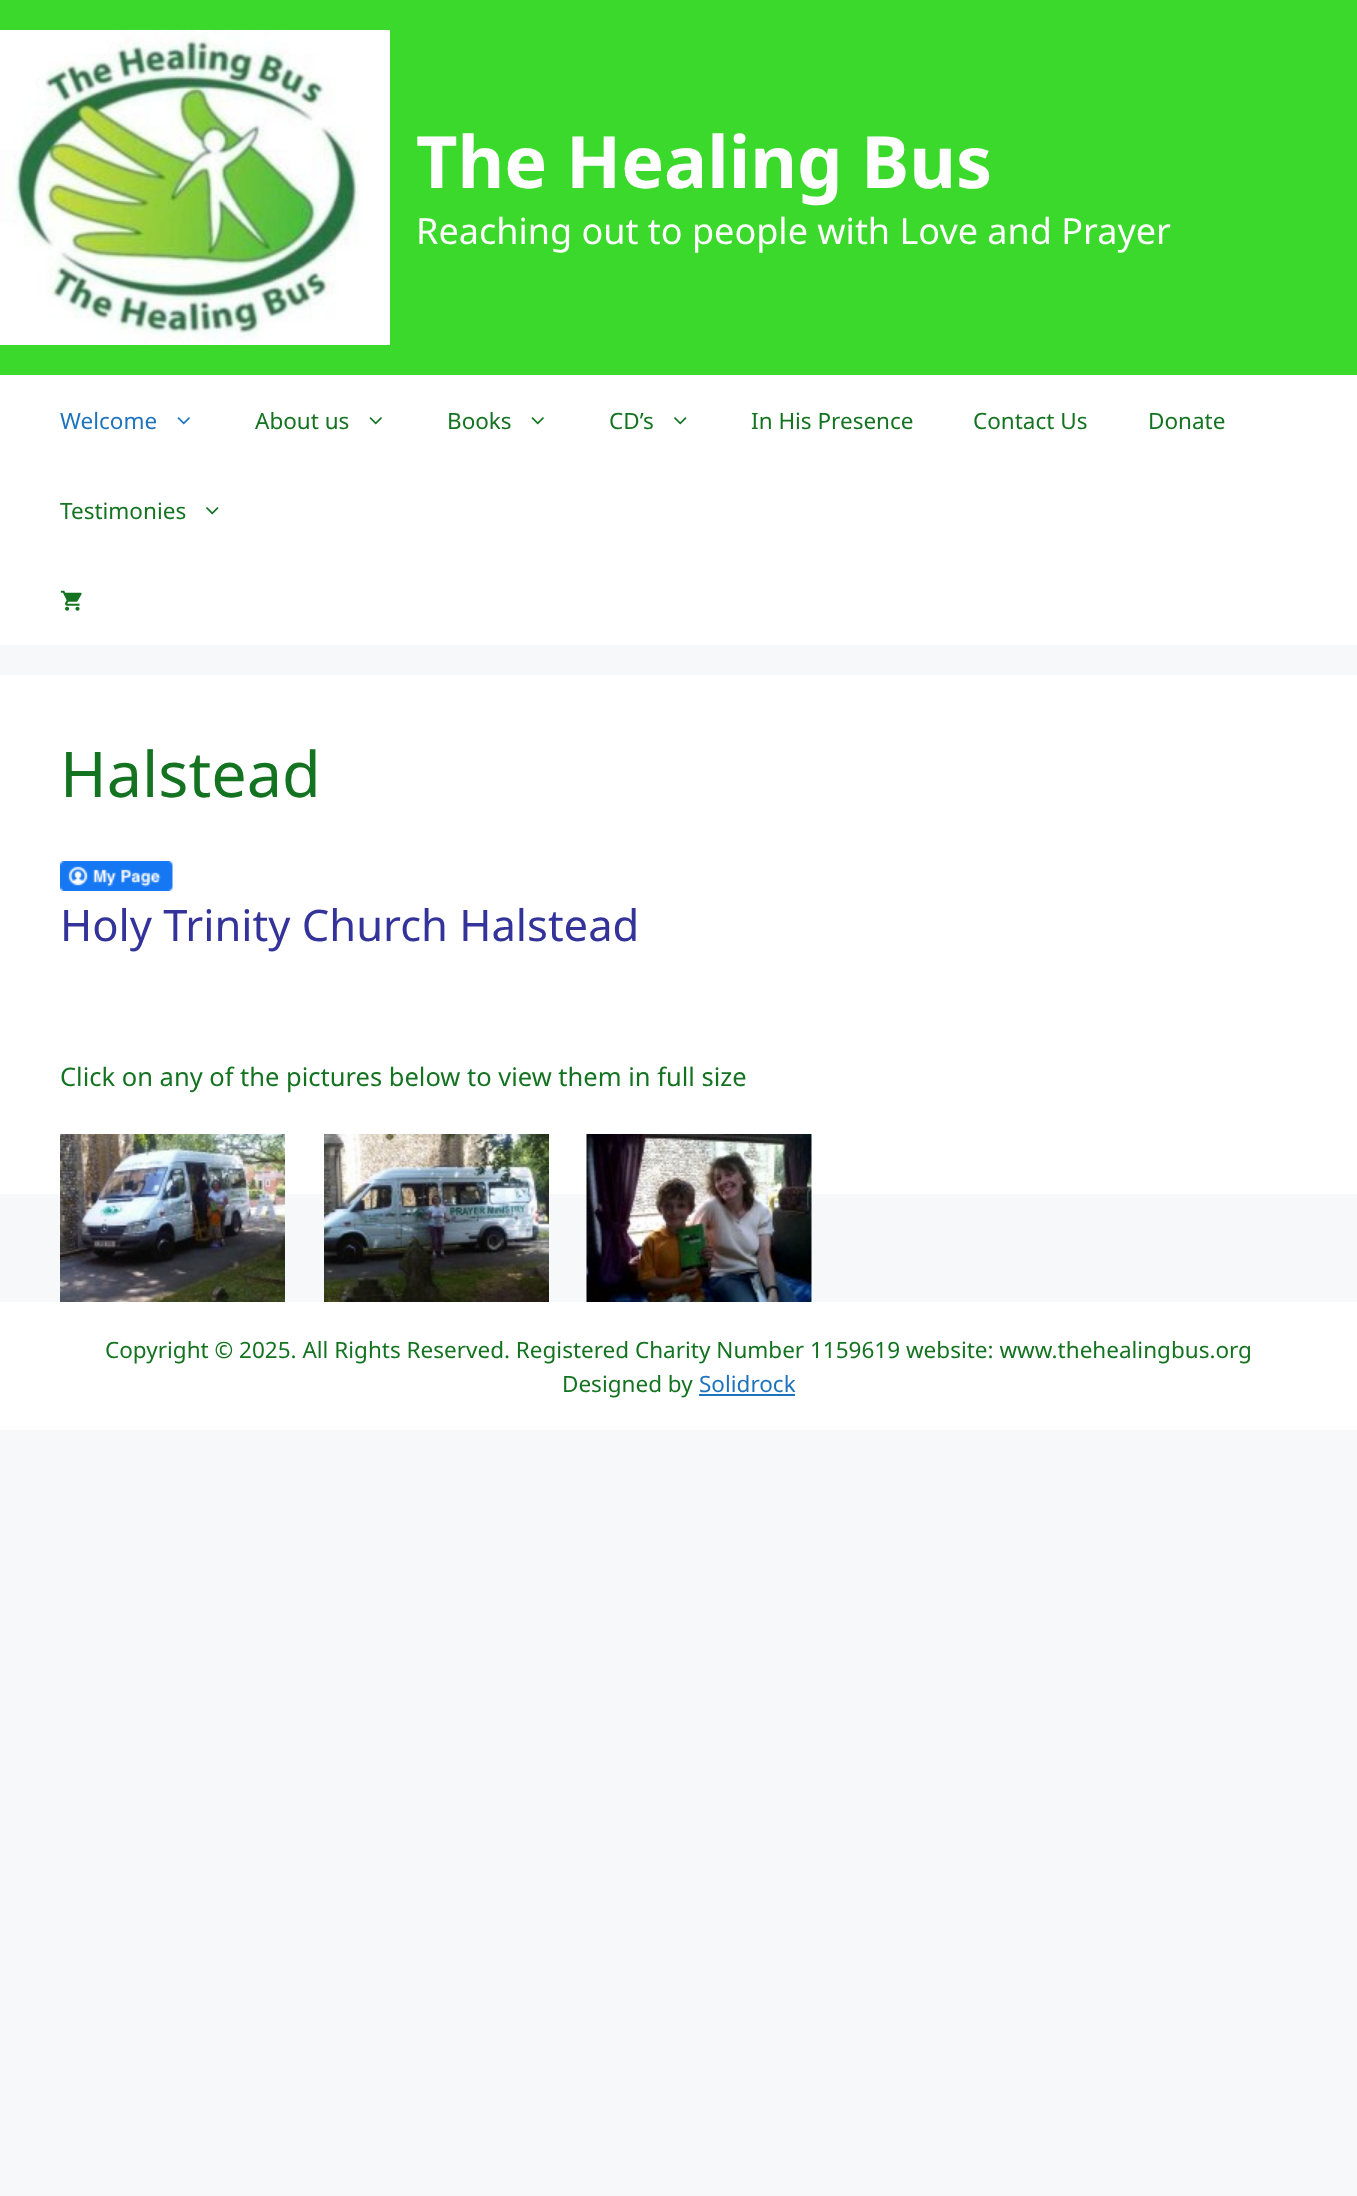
<!DOCTYPE html>
<meta charset="utf-8">
<style>body { margin: 0 } canvas { display: block }</style>
<canvas id="canvas" width="1357" height="2196"></canvas>
<script type="module">
  const canvas = document.getElementById("canvas");
  const ctx = canvas.getContext("2d");
  ctx.miterLimit = 4;
  ctx.fontKerning = "normal";
  async function loadImage(src) {
    const img = new Image();
    img.src = src;
    await img.decode();
    return img;
  }

  ctx.fillStyle = "#f7f8f9";
  ctx.fillRect(0, 0, 1357, 2196);
  ctx.fillStyle = "#3ad92b";
  ctx.fillRect(0, 0, 1357, 375);
  ctx.drawImage(await loadImage("img1.png"), 0, 30, 390, 315);
  ctx.font = "bold 72px Noto Sans";
  ctx.fillStyle = "#ffffff";
  ctx.fillText("The Healing Bus", 416, 188);
  ctx.font = "36px Noto Sans";
  ctx.fillText("Reaching out to people with Love and Prayer", 416, 244);
  ctx.fillRect(0, 375, 1357, 270);
  ctx.font = "22.5px Noto Sans";
  ctx.fillStyle = "#1e73be";
  ctx.fillText("Welcome", 60, 429);
  ctx.drawImage(await loadImage("img2.png"), 177, 417, 13, 8);
  ctx.fillStyle = "#147320";
  ctx.fillText("About us", 255, 429);
  ctx.drawImage(await loadImage("img3.png"), 369, 417, 13, 8);
  ctx.fillText("Books", 447, 429);
  ctx.drawImage(await loadImage("img3.png"), 531, 417, 13, 8);
  ctx.fillText("CD’s", 609, 429);
  ctx.drawImage(await loadImage("img4.png"), 674, 417, 13, 8);
  ctx.fillText("In His Presence", 751, 429);
  ctx.fillText("Contact Us", 973, 429);
  ctx.fillText("Donate", 1148, 429);
  ctx.fillText("Testimonies", 60, 519);
  ctx.drawImage(await loadImage("img4.png"), 206, 507, 13, 8);
  ctx.drawImage(await loadImage("img5.png"), 60, 590, 22, 21);
  ctx.fillStyle = "#ffffff";
  ctx.fillRect(0, 675, 1357, 519);
  ctx.font = "63px Noto Sans";
  ctx.fillStyle = "#147320";
  ctx.fillText("Halstead", 60, 797);
  ctx.drawImage(await loadImage("img6.png"), 60, 861, 113, 30);
  ctx.font = "43.5px Noto Sans";
  ctx.fillStyle = "#333399";
  ctx.fillText("Holy Trinity Church Halstead", 60, 941);
  ctx.font = "25.5px Noto Sans";
  ctx.fillStyle = "#147320";
  ctx.fillText("Click on any of the pictures below to view them in full size", 60, 1086);
  ctx.drawImage(await loadImage("img7.png"), 60, 1134, 225, 168);
  ctx.drawImage(await loadImage("img8.png"), 324, 1134, 225, 168);
  ctx.drawImage(await loadImage("img9.png"), 586, 1134, 226, 168);
  ctx.fillStyle = "#ffffff";
  ctx.fillRect(0, 1302, 1357, 128);
  ctx.font = "22.5px Noto Sans";
  ctx.fillStyle = "#147320";
  ctx.fillText("Copyright © 2025. All Rights Reserved. Registered Charity Number 1159619 website: www.thehealingbus.org", 105, 1358);
  ctx.fillText("Designed by", 562, 1392);
  ctx.fillStyle = "#1e73be";
  ctx.fillText("Solidrock", 699, 1392);
  ctx.fillRect(699, 1394, 96, 2);
</script>
